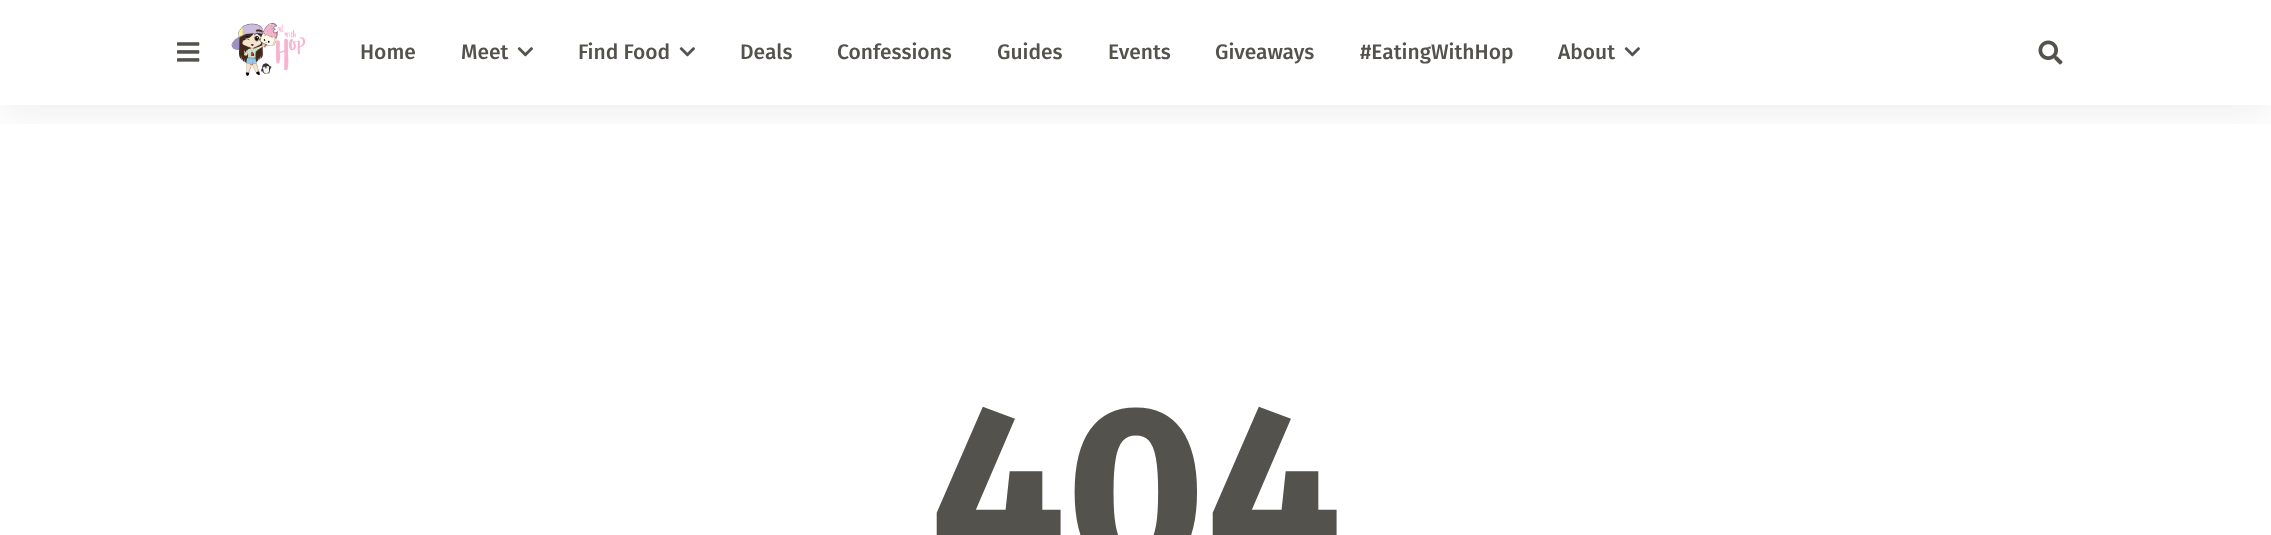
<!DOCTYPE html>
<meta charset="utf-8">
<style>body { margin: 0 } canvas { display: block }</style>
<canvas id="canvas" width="2271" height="535"></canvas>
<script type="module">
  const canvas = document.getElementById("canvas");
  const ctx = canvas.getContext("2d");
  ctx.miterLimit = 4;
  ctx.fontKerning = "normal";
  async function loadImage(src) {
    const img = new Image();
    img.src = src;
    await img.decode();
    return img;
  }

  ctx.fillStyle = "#ffffff";
  ctx.fillRect(0, 0, 2271, 535);
  ctx.save();
  ctx.beginPath();
  ctx.rect(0, 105, 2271, 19);
  ctx.clip();
  ctx.fillStyle = "rgba(0, 0, 0, 0.07)";
  ctx.filter = "blur(22.5px)";
  ctx.beginPath();
  ctx.rect(0, 6, 2271, 105);
  ctx.fill();
  ctx.filter = "none";
  ctx.restore();
  ctx.drawImage(await loadImage("img1.png"), 177, 42, 23, 20);
  ctx.drawImage(await loadImage("img2.png"), 231, 23, 75, 53);
  ctx.font = "500 21px Fira Sans";
  ctx.fillStyle = "#54524c";
  ctx.fillText("Home", 360, 59);
  ctx.fillText("Meet", 461, 59);
  ctx.drawImage(await loadImage("img3.png"), 517, 47, 16, 10);
  ctx.fillText("Find Food", 578, 59);
  ctx.drawImage(await loadImage("img3.png"), 679, 47, 16, 10);
  ctx.fillText("Deals", 740, 59);
  ctx.fillText("Confessions", 837, 59);
  ctx.fillText("Guides", 997, 59);
  ctx.fillText("Events", 1108, 59);
  ctx.fillText("Giveaways", 1215, 59);
  ctx.fillText("#EatingWithHop", 1360, 59);
  ctx.fillText("About", 1558, 59);
  ctx.drawImage(await loadImage("img3.png"), 1624, 47, 16, 10);
  ctx.drawImage(await loadImage("img4.png"), 2038, 40, 25, 25);
  ctx.font = "bold 240px Fira Sans";
  ctx.fillText("404", 930, 573);
</script>
